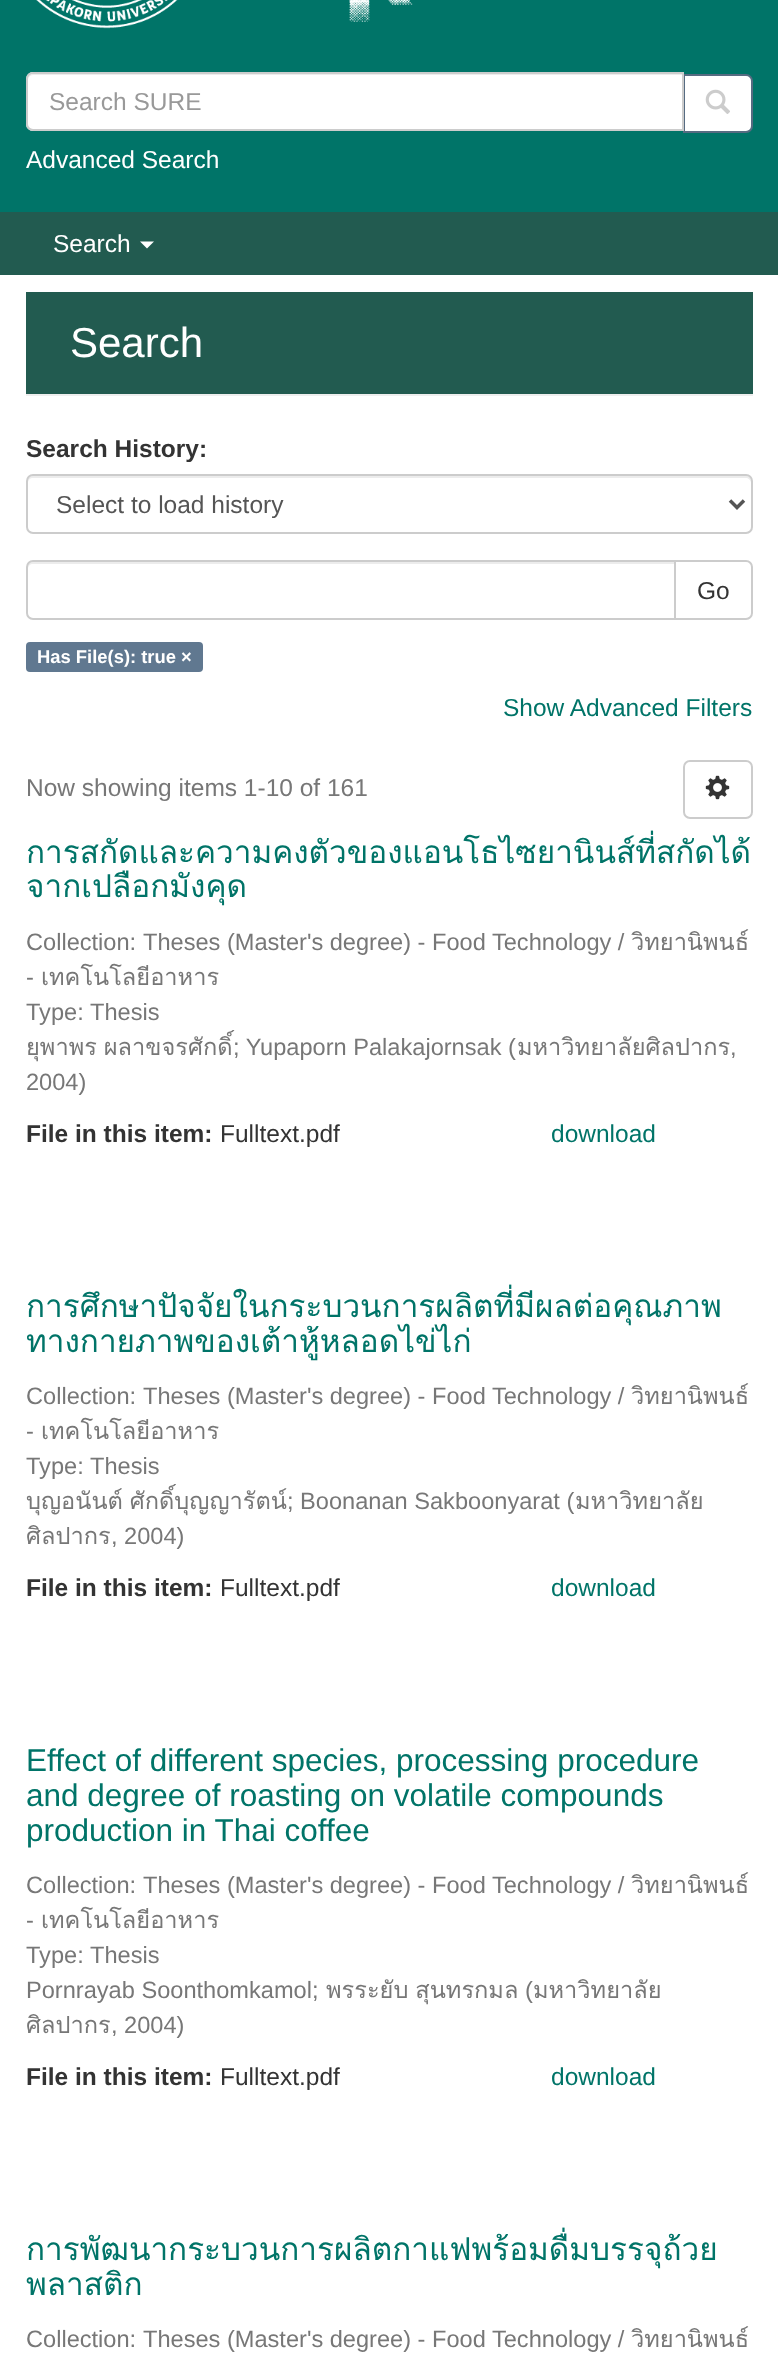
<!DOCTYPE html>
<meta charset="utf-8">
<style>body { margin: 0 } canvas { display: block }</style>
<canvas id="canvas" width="778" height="2353"></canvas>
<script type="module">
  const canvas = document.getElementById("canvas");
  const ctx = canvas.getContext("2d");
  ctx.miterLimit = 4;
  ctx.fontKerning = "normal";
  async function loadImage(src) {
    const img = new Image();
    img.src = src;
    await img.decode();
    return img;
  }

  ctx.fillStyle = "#225b50";
  ctx.fillRect(0, 0, 778, 2353);
  ctx.fillStyle = "#007468";
  ctx.fillRect(0, 0, 778, 212);
  ctx.drawImage(await loadImage("img1.png"), 36, 0, 142, 29);
  ctx.drawImage(await loadImage("img2.png"), 349, 0, 64, 22);
  ctx.fillStyle = "#ffffff";
  ctx.beginPath();
  ctx.roundRect(684, 75, 68, 57, [0, 6, 6, 0]);
  ctx.fill();
  ctx.strokeStyle = "#566b81";
  ctx.lineWidth = 2;
  ctx.stroke();
  ctx.beginPath();
  ctx.roundRect(26, 72, 658, 59, [7, 0, 0, 7]);
  ctx.fill();
  ctx.fillStyle = "#ececec";
  ctx.beginPath();
  ctx.moveTo(33, 75);
  ctx.lineTo(682, 75);
  ctx.lineTo(682, 130);
  ctx.lineTo(683, 130);
  ctx.lineTo(683, 74);
  ctx.lineTo(33, 74);
  ctx.bezierCurveTo(30, 74, 28, 77, 28, 80);
  ctx.bezierCurveTo(28, 78, 30, 75, 33, 75);
  ctx.closePath();
  ctx.fill();
  ctx.beginPath();
  ctx.roundRect(27, 73, 656, 57, [6, 0, 0, 6]);
  ctx.strokeStyle = "#cccccc";
  ctx.stroke();
  ctx.font = "24.5px Liberation Sans";
  ctx.fillStyle = "#999999";
  ctx.fillText("Search SURE", 49, 110);
  ctx.drawImage(await loadImage("img3.png"), 705, 89, 25, 25);
  ctx.fillStyle = "#ffffff";
  ctx.fillText("Advanced Search", 26, 168);
  ctx.fillText("Search", 53, 252);
  ctx.beginPath();
  ctx.moveTo(140, 241.5);
  ctx.lineTo(154, 241.5);
  ctx.lineTo(147, 248.5);
  ctx.closePath();
  ctx.fill();
  ctx.fillRect(0, 275, 778, 2078);
  ctx.fillStyle = "#225b50";
  ctx.fillRect(26, 292, 727, 102);
  ctx.fillStyle = "#eeeeee";
  ctx.fillRect(26, 394, 727, 2);
  ctx.font = "42px Liberation Sans";
  ctx.fillStyle = "#ffffff";
  ctx.fillText("Search", 70, 357);
  ctx.font = "bold 24.5px Liberation Sans";
  ctx.fillStyle = "#333333";
  ctx.fillText("Search History:", 26, 457);
  ctx.fillStyle = "#ececec";
  ctx.beginPath();
  ctx.moveTo(33, 478);
  ctx.lineTo(746, 478);
  ctx.bezierCurveTo(748, 478, 751, 480, 751, 483);
  ctx.lineTo(751, 481);
  ctx.bezierCurveTo(751, 478, 749, 476, 746, 476);
  ctx.lineTo(33, 476);
  ctx.bezierCurveTo(30, 476, 28, 478, 28, 481);
  ctx.lineTo(28, 483);
  ctx.bezierCurveTo(28, 480, 30, 478, 33, 478);
  ctx.closePath();
  ctx.fill();
  ctx.beginPath();
  ctx.roundRect(27, 475, 725, 58, 6);
  ctx.stroke();
  ctx.beginPath();
  ctx.moveTo(730, 500.5);
  ctx.lineTo(737, 507.5);
  ctx.lineTo(744, 500.5);
  ctx.strokeStyle = "#555555";
  ctx.lineWidth = 3.5;
  ctx.stroke();
  ctx.font = "24.5px Liberation Sans";
  ctx.fillStyle = "#555555";
  ctx.fillText("Select to load history", 56, 513);
  ctx.beginPath();
  ctx.roundRect(675, 561, 77, 58, [0, 6, 6, 0]);
  ctx.strokeStyle = "#cccccc";
  ctx.lineWidth = 2;
  ctx.stroke();
  ctx.fillStyle = "#ffffff";
  ctx.beginPath();
  ctx.roundRect(26, 560, 650, 60, [7, 0, 0, 7]);
  ctx.fill();
  ctx.fillStyle = "#ececec";
  ctx.beginPath();
  ctx.moveTo(33, 564);
  ctx.lineTo(674, 564);
  ctx.lineTo(674, 562);
  ctx.lineTo(33, 562);
  ctx.bezierCurveTo(30, 562, 28, 564, 28, 567);
  ctx.lineTo(28, 569);
  ctx.bezierCurveTo(28, 566, 30, 564, 33, 564);
  ctx.closePath();
  ctx.fill();
  ctx.beginPath();
  ctx.roundRect(27, 561, 648, 58, [6, 0, 0, 6]);
  ctx.stroke();
  ctx.fillStyle = "#333333";
  ctx.fillText("Go", 697, 599);
  ctx.fillStyle = "#607890";
  ctx.beginPath();
  ctx.roundRect(26, 642, 177, 30, 4);
  ctx.fill();
  ctx.font = "bold 18.4px Liberation Sans";
  ctx.fillStyle = "#ffffff";
  ctx.fillText("Has File(s): true ×", 37, 663);
  ctx.font = "24.5px Liberation Sans";
  ctx.fillStyle = "#007468";
  ctx.fillText("Show Advanced Filters", 503, 716);
  ctx.fillStyle = "#777777";
  ctx.fillText("Now showing items 1-10 of 161", 26, 796);
  ctx.beginPath();
  ctx.roundRect(684, 761, 68, 57, 6);
  ctx.stroke();
  ctx.drawImage(await loadImage("img4.png"), 705, 775, 25, 25);
  ctx.font = "31.5px Loma";
  ctx.fillStyle = "#007468";
  ctx.fillText("การสกัดและความคงตัวของแอนโธไซยานินส์ที่สกัดได้", 26, 863);
  ctx.fillText("จากเปลือกมังคุด", 26, 897);
  ctx.font = "23.6px Liberation Sans";
  ctx.fillStyle = "#777777";
  ctx.fillText("Collection:", 26, 950);
  ctx.fillText("Theses (Master's degree) - Food Technology /", 143, 950);
  ctx.font = "23.6px Loma";
  ctx.fillText("วิทยานิพนธ์", 631, 950);
  ctx.font = "23.6px Liberation Sans";
  ctx.fillText("-", 26, 985);
  ctx.font = "23.6px Loma";
  ctx.fillText("เทคโนโลยีอาหาร", 41, 985);
  ctx.font = "23.6px Liberation Sans";
  ctx.fillText("Type:", 26, 1020);
  ctx.fillText("Thesis", 90, 1020);
  ctx.wordSpacing = "-1px";
  ctx.font = "23.6px Loma";
  ctx.fillText("ยุพาพร ผลาขจรศักดิ์", 26, 1055);
  ctx.wordSpacing = "0px";
  ctx.font = "23.6px Liberation Sans";
  ctx.fillText("; Yupaporn Palakajornsak (", 233, 1055);
  ctx.font = "23.6px Loma";
  ctx.fillText("มหาวิทยาลัยศิลปากร", 517, 1055);
  ctx.font = "23.6px Liberation Sans";
  ctx.fillText(",", 730, 1055);
  ctx.fillText("2004)", 26, 1090);
  ctx.font = "bold 24.5px Liberation Sans";
  ctx.fillStyle = "#333333";
  ctx.fillText("File in this item:", 26, 1142);
  ctx.font = "24.5px Liberation Sans";
  ctx.fillText("Fulltext.pdf", 220, 1142);
  ctx.fillStyle = "#007468";
  ctx.fillText("download", 551, 1142);
  ctx.font = "31.5px Loma";
  ctx.fillText("การศึกษาปัจจัยในกระบวนการผลิตที่มีผลต่อคุณภาพ", 26, 1317);
  ctx.fillText("ทางกายภาพของเต้าหู้หลอดไข่ไก่", 26, 1352);
  ctx.font = "23.6px Liberation Sans";
  ctx.fillStyle = "#777777";
  ctx.fillText("Collection:", 26, 1404);
  ctx.fillText("Theses (Master's degree) - Food Technology /", 143, 1404);
  ctx.font = "23.6px Loma";
  ctx.fillText("วิทยานิพนธ์", 631, 1404);
  ctx.font = "23.6px Liberation Sans";
  ctx.fillText("-", 26, 1439);
  ctx.font = "23.6px Loma";
  ctx.fillText("เทคโนโลยีอาหาร", 41, 1439);
  ctx.font = "23.6px Liberation Sans";
  ctx.fillText("Type:", 26, 1474);
  ctx.fillText("Thesis", 90, 1474);
  ctx.wordSpacing = "-1px";
  ctx.font = "23.6px Loma";
  ctx.fillText("บุญอนันต์ ศักดิ์บุญญารัตน์", 26, 1509);
  ctx.wordSpacing = "0px";
  ctx.font = "23.6px Liberation Sans";
  ctx.fillText("; Boonanan Sakboonyarat (", 287, 1509);
  ctx.font = "23.6px Loma";
  ctx.fillText("มหาวิทยาลัย", 575, 1509);
  ctx.fillText("ศิลปากร", 26, 1544);
  ctx.font = "23.6px Liberation Sans";
  ctx.fillText(", 2004)", 111, 1544);
  ctx.font = "bold 24.5px Liberation Sans";
  ctx.fillStyle = "#333333";
  ctx.fillText("File in this item:", 26, 1596);
  ctx.font = "24.5px Liberation Sans";
  ctx.fillText("Fulltext.pdf", 220, 1596);
  ctx.fillStyle = "#007468";
  ctx.fillText("download", 551, 1596);
  ctx.font = "31.5px Liberation Sans";
  ctx.fillText("Effect of different species, processing procedure", 26, 1771);
  ctx.fillText("and degree of roasting on volatile compounds", 26, 1806);
  ctx.fillText("production in Thai coffee", 26, 1841);
  ctx.font = "23.6px Liberation Sans";
  ctx.fillStyle = "#777777";
  ctx.fillText("Collection:", 26, 1893);
  ctx.fillText("Theses (Master's degree) - Food Technology /", 143, 1893);
  ctx.font = "23.6px Loma";
  ctx.fillText("วิทยานิพนธ์", 631, 1893);
  ctx.font = "23.6px Liberation Sans";
  ctx.fillText("-", 26, 1928);
  ctx.font = "23.6px Loma";
  ctx.fillText("เทคโนโลยีอาหาร", 41, 1928);
  ctx.font = "23.6px Liberation Sans";
  ctx.fillText("Type:", 26, 1963);
  ctx.fillText("Thesis", 90, 1963);
  ctx.fillText("Pornrayab Soonthomkamol;", 26, 1998);
  ctx.wordSpacing = "-1px";
  ctx.font = "23.6px Loma";
  ctx.fillText("พรระยับ สุนทรกมล", 326, 1998);
  ctx.wordSpacing = "0px";
  ctx.font = "23.6px Liberation Sans";
  ctx.fillText("(", 525, 1998);
  ctx.font = "23.6px Loma";
  ctx.fillText("มหาวิทยาลัย", 533, 1998);
  ctx.fillText("ศิลปากร", 26, 2033);
  ctx.font = "23.6px Liberation Sans";
  ctx.fillText(", 2004)", 111, 2033);
  ctx.font = "bold 24.5px Liberation Sans";
  ctx.fillStyle = "#333333";
  ctx.fillText("File in this item:", 26, 2085);
  ctx.font = "24.5px Liberation Sans";
  ctx.fillText("Fulltext.pdf", 220, 2085);
  ctx.fillStyle = "#007468";
  ctx.fillText("download", 551, 2085);
  ctx.font = "31.5px Loma";
  ctx.fillText("การพัฒนากระบวนการผลิตกาแฟพร้อมดื่มบรรจุถ้วย", 26, 2260);
  ctx.fillText("พลาสติก", 26, 2295);
  ctx.font = "23.6px Liberation Sans";
  ctx.fillStyle = "#777777";
  ctx.fillText("Collection:", 26, 2347);
  ctx.fillText("Theses (Master's degree) - Food Technology /", 143, 2347);
  ctx.font = "23.6px Loma";
  ctx.fillText("วิทยานิพนธ์", 631, 2347);
</script>
